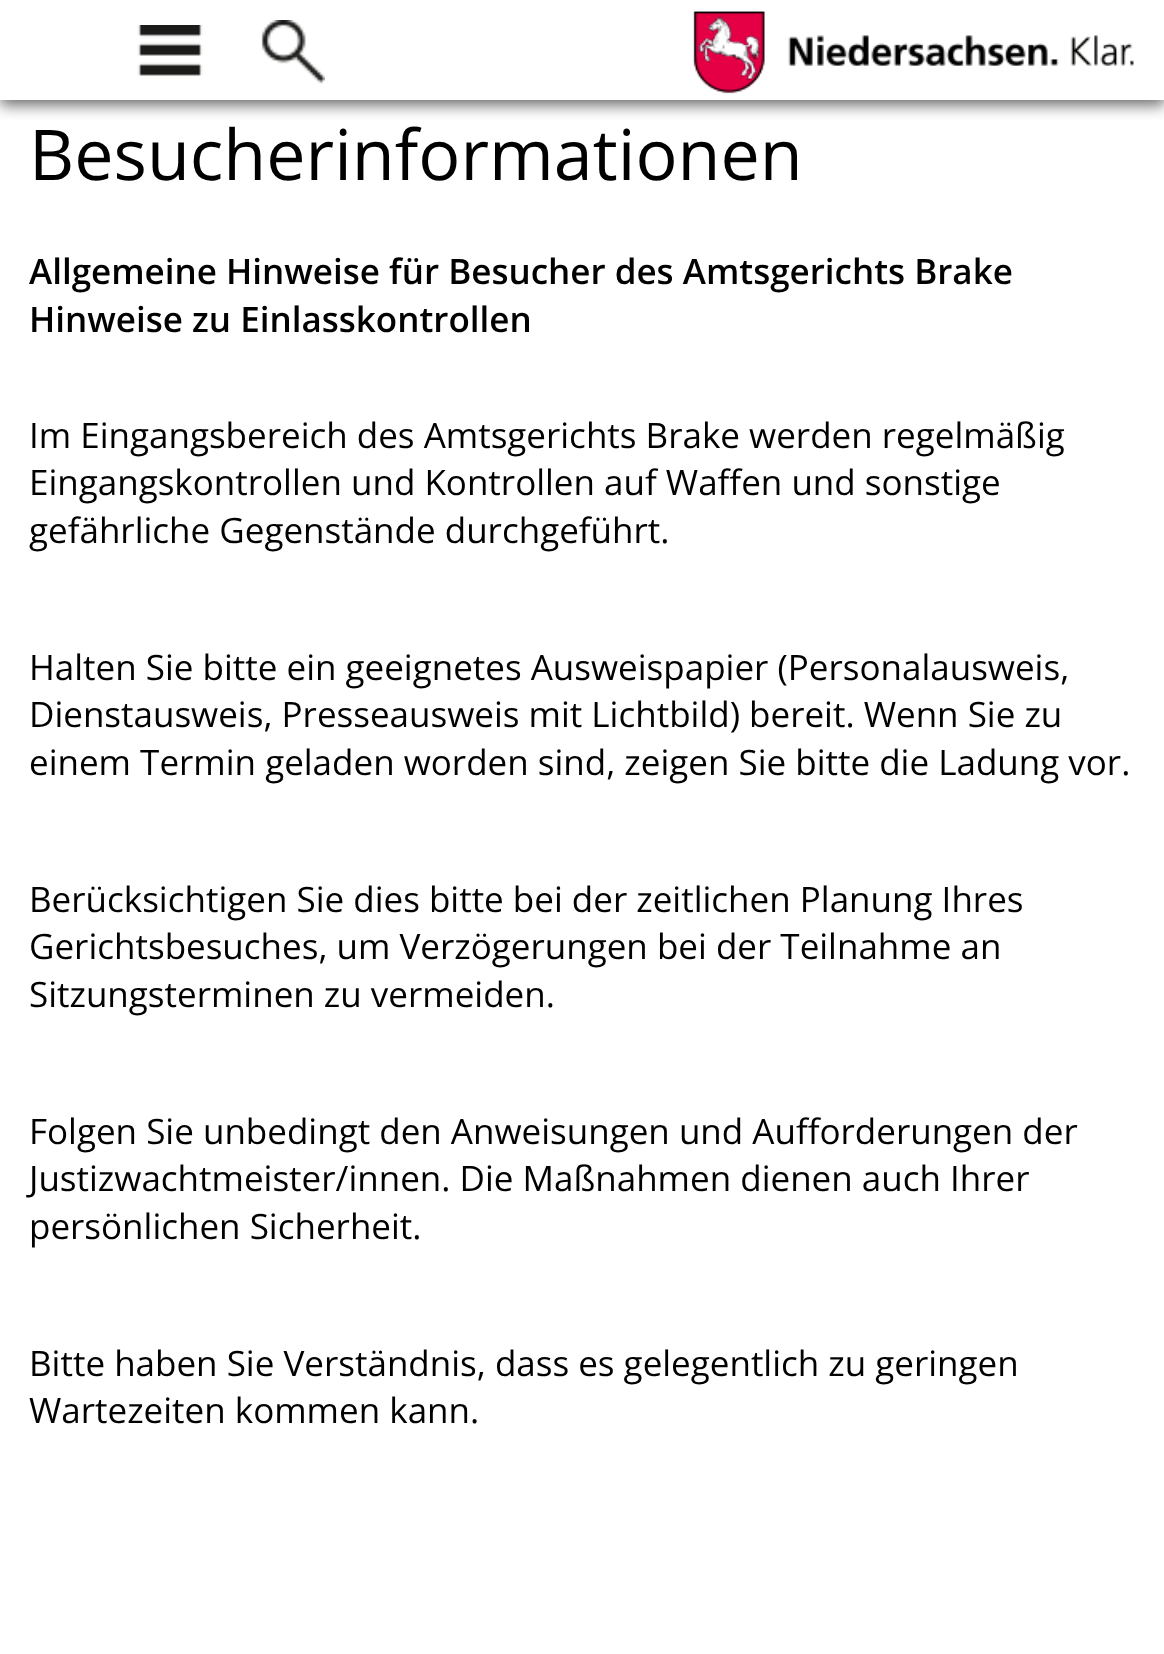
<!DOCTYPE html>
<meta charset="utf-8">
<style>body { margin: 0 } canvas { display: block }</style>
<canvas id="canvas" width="1164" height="1654"></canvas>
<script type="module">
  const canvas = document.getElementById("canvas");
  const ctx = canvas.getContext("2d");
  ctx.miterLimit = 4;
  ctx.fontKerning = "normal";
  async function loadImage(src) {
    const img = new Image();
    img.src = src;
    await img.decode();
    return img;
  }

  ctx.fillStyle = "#ffffff";
  ctx.fillRect(0, 0, 1164, 1654);
  ctx.save();
  ctx.beginPath();
  ctx.rect(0, 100, 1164, 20);
  ctx.clip();
  ctx.fillStyle = "#666666";
  ctx.filter = "blur(7.5px)";
  ctx.beginPath();
  ctx.rect(0, 5, 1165, 100);
  ctx.fill();
  ctx.filter = "none";
  ctx.restore();
  ctx.drawImage(await loadImage("img1.png"), 137, 25, 66, 51);
  ctx.drawImage(await loadImage("img2.png"), 261, 20, 64, 64);
  ctx.drawImage(await loadImage("img3.png"), 693, 11, 355, 83);
  ctx.drawImage(await loadImage("img4.png"), 1050, 35, 84, 31);
  ctx.font = "70px Open Sans";
  ctx.fillStyle = "#000000";
  ctx.fillText("Besucherinformationen", 29, 180);
  ctx.font = "600 35px Open Sans";
  ctx.fillText("Allgemeine Hinweise für Besucher des Amtsgerichts Brake", 29, 284);
  ctx.fillText("Hinweise zu Einlasskontrollen", 29, 332);
  ctx.font = "35px Open Sans";
  ctx.fillText("Im Eingangsbereich des Amtsgerichts Brake werden regelmäßig", 29, 448);
  ctx.fillText("Eingangskontrollen und Kontrollen auf Waffen und sonstige", 29, 495);
  ctx.fillText("gefährliche Gegenstände durchgeführt.", 29, 543);
  ctx.fillText("Halten Sie bitte ein geeignetes Ausweispapier (Personalausweis,", 29, 680);
  ctx.fillText("Dienstausweis, Presseausweis mit Lichtbild) bereit. Wenn Sie zu", 29, 727);
  ctx.fillText("einem Termin geladen worden sind, zeigen Sie bitte die Ladung vor.", 29, 775);
  ctx.fillText("Berücksichtigen Sie dies bitte bei der zeitlichen Planung Ihres", 29, 912);
  ctx.fillText("Gerichtsbesuches, um Verzögerungen bei der Teilnahme an", 29, 959);
  ctx.fillText("Sitzungsterminen zu vermeiden.", 29, 1007);
  ctx.fillText("Folgen Sie unbedingt den Anweisungen und Aufforderungen der", 29, 1144);
  ctx.fillText("Justizwachtmeister/innen. Die Maßnahmen dienen auch Ihrer", 29, 1191);
  ctx.fillText("persönlichen Sicherheit.", 29, 1239);
  ctx.fillText("Bitte haben Sie Verständnis, dass es gelegentlich zu geringen", 29, 1376);
  ctx.fillText("Wartezeiten kommen kann.", 29, 1423);
</script>
